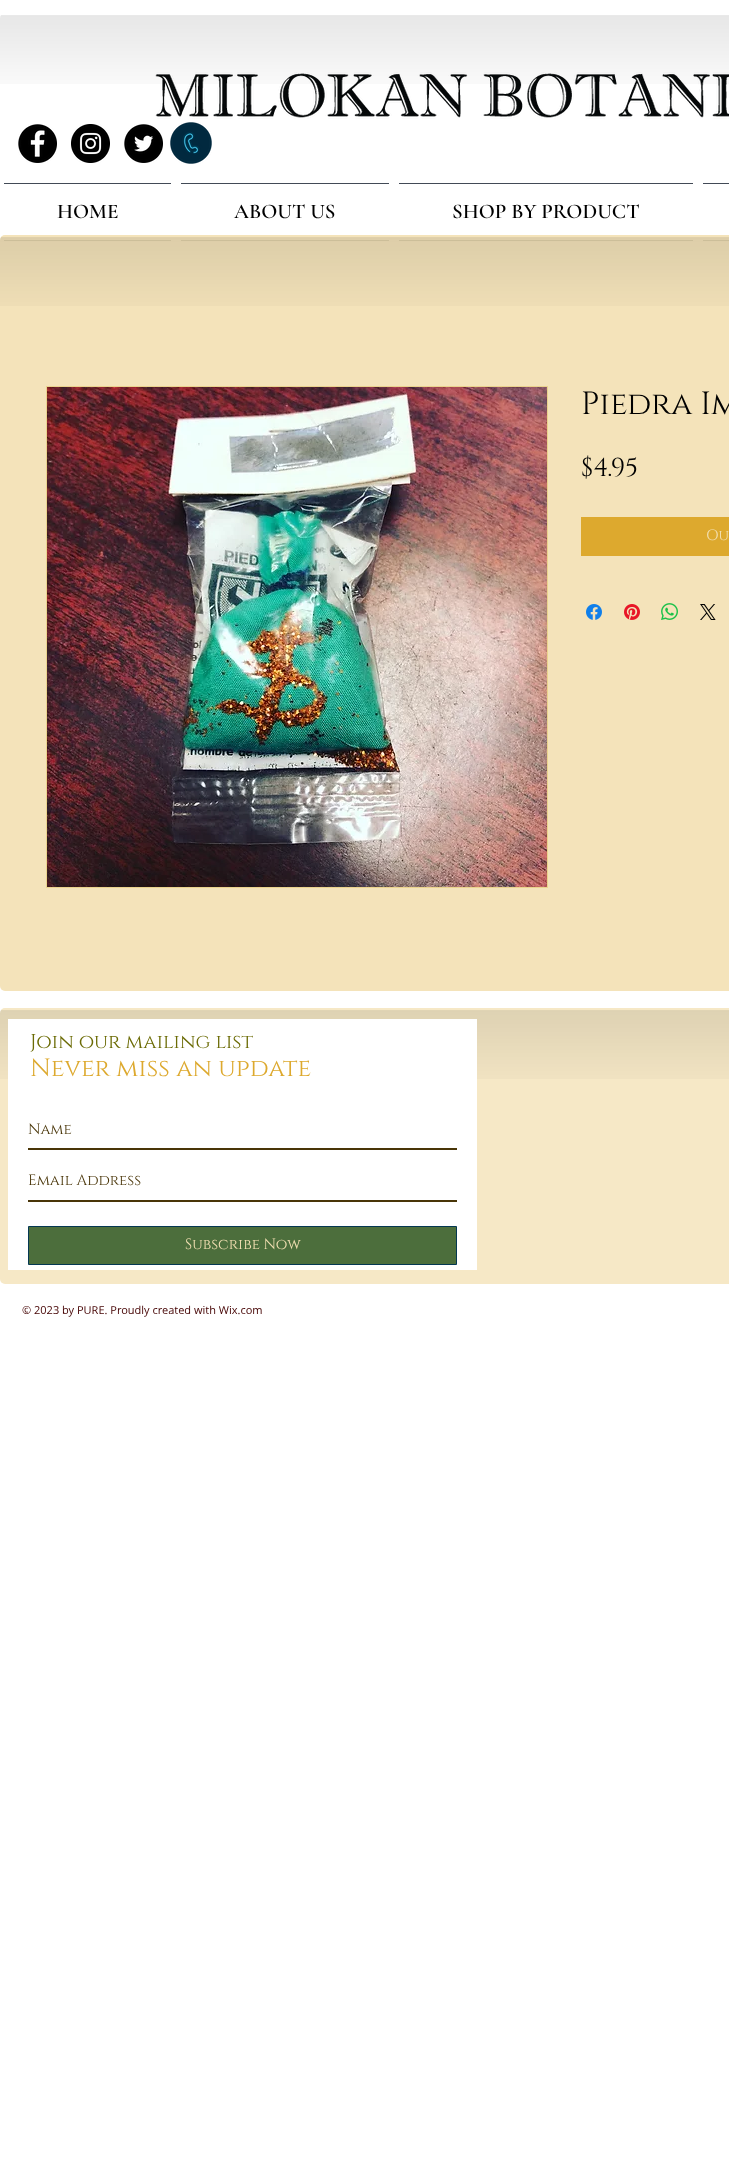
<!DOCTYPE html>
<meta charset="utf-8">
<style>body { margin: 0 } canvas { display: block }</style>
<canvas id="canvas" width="729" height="2166"></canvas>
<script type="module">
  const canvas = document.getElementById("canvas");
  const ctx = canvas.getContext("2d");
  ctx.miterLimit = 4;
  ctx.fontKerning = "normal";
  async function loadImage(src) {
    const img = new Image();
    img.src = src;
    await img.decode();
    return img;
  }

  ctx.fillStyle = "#ffffff";
  ctx.fillRect(0, 0, 729, 2166);
  ctx.drawImage(await loadImage("img1.png"), 0, 15, 729, 69);
  ctx.drawImage(await loadImage("img2.png"), 155, 72, 574, 47);
  ctx.drawImage(await loadImage("img3.png"), 18, 124, 39, 39);
  ctx.drawImage(await loadImage("img4.png"), 71, 124, 39, 39);
  ctx.drawImage(await loadImage("img5.png"), 124, 124, 39, 39);
  ctx.drawImage(await loadImage("img6.png"), 170, 122, 42, 42);
  ctx.fillStyle = "#424a56";
  ctx.fillRect(4, 183, 167, 1);
  ctx.fillRect(4, 240, 167, 1);
  ctx.font = "600 21px Cormorant Garamond";
  ctx.fillStyle = "#000000";
  ctx.fillText("HOME", 57, 218);
  ctx.fillStyle = "#424a56";
  ctx.fillRect(181, 183, 208, 1);
  ctx.fillRect(181, 240, 208, 1);
  ctx.fillStyle = "#000000";
  ctx.fillText("ABOUT US", 234, 218);
  ctx.fillStyle = "#424a56";
  ctx.fillRect(399, 183, 294, 1);
  ctx.fillRect(399, 240, 294, 1);
  ctx.fillStyle = "#000000";
  ctx.fillText("SHOP BY PRODUCT", 452, 218);
  ctx.fillStyle = "#424a56";
  ctx.fillRect(703, 183, 26, 1);
  ctx.fillRect(703, 240, 26, 1);
  ctx.fillStyle = "rgba(243, 224, 179, 0.9)";
  ctx.beginPath();
  ctx.roundRect(0, 235, 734, 756, 5);
  ctx.fill();
  ctx.drawImage(await loadImage("img7.png"), 0, 237, 729, 69);
  ctx.strokeStyle = "#ead38d";
  ctx.strokeRect(46.5, 386.5, 501, 501);
  ctx.drawImage(await loadImage("img8.png"), 47, 387, 500, 500);
  ctx.font = "32px Cinzel";
  ctx.fillStyle = "#000000";
  ctx.fillText("Piedra Im", 581, 414);
  ctx.font = "26px Cinzel";
  ctx.fillText("$4.95", 581, 476);
  ctx.fillStyle = "#dda92e";
  ctx.fillRect(581, 517, 148, 39);
  ctx.font = "15px Cinzel";
  ctx.fillStyle = "#f3e0b3";
  ctx.fillText("Ou", 706, 540);
  ctx.drawImage(await loadImage("img9.png"), 586, 604, 16, 16);
  ctx.drawImage(await loadImage("img10.png"), 624, 604, 16, 16);
  ctx.drawImage(await loadImage("img11.png"), 661, 603, 17, 17);
  ctx.drawImage(await loadImage("img12.png"), 700, 604, 16, 16);
  ctx.fillStyle = "#f6e8c6";
  ctx.beginPath();
  ctx.roundRect(0, 1008, 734, 276, 5);
  ctx.fill();
  ctx.drawImage(await loadImage("img13.png"), 0, 1010, 729, 69);
  ctx.fillStyle = "#ffffff";
  ctx.fillRect(8, 1019, 469, 251);
  ctx.font = "20px Cinzel";
  ctx.fillStyle = "#6b6b05";
  ctx.fillText("Join our mailing list", 30, 1048);
  ctx.font = "25px Cinzel";
  ctx.fillStyle = "#dda92e";
  ctx.fillText("Never miss an update", 30, 1076);
  ctx.fillStyle = "#493508";
  ctx.fillRect(28, 1148, 429, 2);
  ctx.font = "15px Cinzel";
  ctx.fillText("Name", 28, 1134);
  ctx.fillRect(28, 1200, 429, 2);
  ctx.fillText("Email Address", 28, 1185);
  ctx.fillStyle = "#4c6e3c";
  ctx.beginPath();
  ctx.rect(28.5, 1226.5, 428, 38);
  ctx.fill();
  ctx.strokeStyle = "#043852";
  ctx.stroke();
  ctx.fillStyle = "#f3e0b3";
  ctx.fillText("Subscribe Now", 185, 1249);
  ctx.font = "11px Open Sans";
  ctx.fillStyle = "#440202";
  ctx.fillText("© 2023 by PURE. Proudly created with Wix.com", 22, 1314);
</script>
